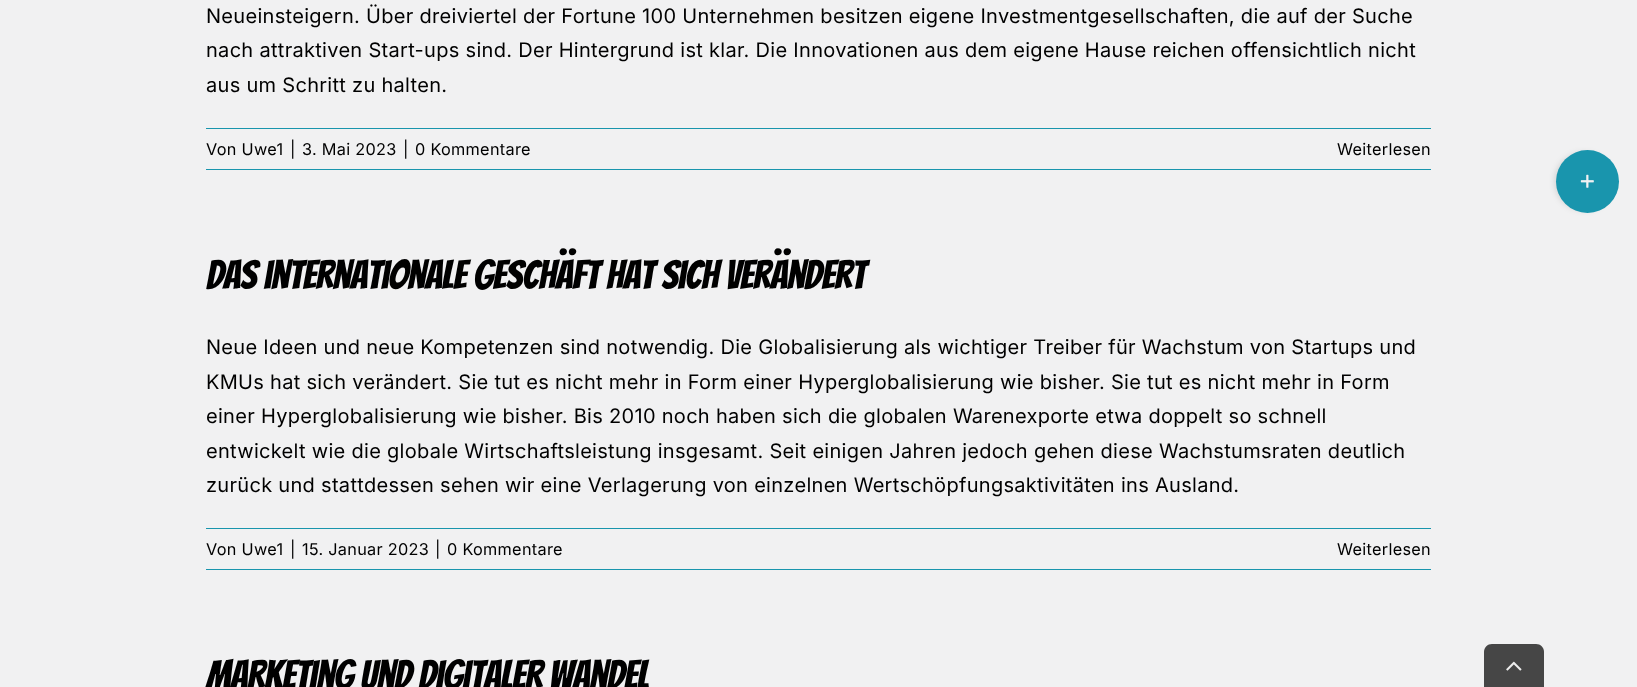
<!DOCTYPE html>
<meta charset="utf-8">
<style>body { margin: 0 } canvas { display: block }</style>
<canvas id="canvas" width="1637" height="687"></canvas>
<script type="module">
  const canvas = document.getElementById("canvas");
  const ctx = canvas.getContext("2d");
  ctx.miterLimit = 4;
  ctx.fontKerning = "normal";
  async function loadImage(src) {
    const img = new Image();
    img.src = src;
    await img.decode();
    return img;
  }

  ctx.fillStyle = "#f1f1f2";
  ctx.fillRect(0, 0, 1637, 687);
  ctx.letterSpacing = "0.3px";
  ctx.font = "20px Inter";
  ctx.fillStyle = "#000000";
  ctx.fillText("Neueinsteigern. Über dreiviertel der Fortune 100 Unternehmen besitzen eigene Investmentgesellschaften, die auf der Suche", 206, 23);
  ctx.fillText("nach attraktiven Start-ups sind. Der Hintergrund ist klar. Die Innovationen aus dem eigene Hause reichen offensichtlich nicht", 206, 57);
  ctx.fillText("aus um Schritt zu halten.", 206, 92);
  ctx.fillStyle = "#1995ad";
  ctx.fillRect(206, 128, 1225, 1);
  ctx.fillRect(206, 169, 1225, 1);
  ctx.font = "16.25px Inter";
  ctx.fillStyle = "#000000";
  ctx.fillText("Von Uwe1", 206, 155);
  ctx.fillText("|", 290, 155);
  ctx.fillText("3. Mai 2023", 302, 155);
  ctx.fillText("|", 403, 155);
  ctx.fillText("0 Kommentare", 415, 155);
  ctx.fillText("Weiterlesen", 1337, 155);
  ctx.letterSpacing = "-0.6px";
  ctx.font = "40px Bangers";
  ctx.fillText("Das internationale Geschäft hat sich verändert", 206, 289);
  ctx.letterSpacing = "0.3px";
  ctx.font = "20px Inter";
  ctx.fillText("Neue Ideen und neue Kompetenzen sind notwendig. Die Globalisierung als wichtiger Treiber für Wachstum von Startups und", 206, 354);
  ctx.fillText("KMUs hat sich verändert. Sie tut es nicht mehr in Form einer Hyperglobalisierung wie bisher. Sie tut es nicht mehr in Form", 206, 389);
  ctx.fillText("einer Hyperglobalisierung wie bisher. Bis 2010 noch haben sich die globalen Warenexporte etwa doppelt so schnell", 206, 423);
  ctx.fillText("entwickelt wie die globale Wirtschaftsleistung insgesamt. Seit einigen Jahren jedoch gehen diese Wachstumsraten deutlich", 206, 458);
  ctx.fillText("zurück und stattdessen sehen wir eine Verlagerung von einzelnen Wertschöpfungsaktivitäten ins Ausland.", 206, 492);
  ctx.fillStyle = "#1995ad";
  ctx.fillRect(206, 528, 1225, 1);
  ctx.fillRect(206, 569, 1225, 1);
  ctx.font = "16.25px Inter";
  ctx.fillStyle = "#000000";
  ctx.fillText("Von Uwe1", 206, 555);
  ctx.fillText("|", 290, 555);
  ctx.fillText("15. Januar 2023", 302, 555);
  ctx.fillText("|", 435, 555);
  ctx.fillText("0 Kommentare", 447, 555);
  ctx.fillText("Weiterlesen", 1337, 555);
  ctx.letterSpacing = "-0.6px";
  ctx.font = "40px Bangers";
  ctx.fillText("Marketing und digitaler Wandel", 206, 689);
  ctx.fillStyle = "rgba(0, 0, 0, 0.14)";
  ctx.filter = "blur(3px)";
  ctx.beginPath();
  ctx.roundRect(1555, 153, 58, 57, 28.5);
  ctx.fill();
  ctx.filter = "none";
  ctx.fillStyle = "#1995ad";
  ctx.beginPath();
  ctx.arc(1587.5, 181.5, 31.5, 0, Math.PI * 2);
  ctx.fill();
  ctx.drawImage(await loadImage("img1.png"), 1580, 174, 14, 14);
  ctx.fillStyle = "#464646";
  ctx.beginPath();
  ctx.moveTo(1492, 644);
  ctx.lineTo(1536, 644);
  ctx.bezierCurveTo(1540.5, 644, 1544, 647.5, 1544, 652);
  ctx.lineTo(1544, 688);
  ctx.lineTo(1484, 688);
  ctx.lineTo(1484, 652);
  ctx.bezierCurveTo(1484, 647.5, 1487.5, 644, 1492, 644);
  ctx.closePath();
  ctx.fill();
  ctx.drawImage(await loadImage("img2.png"), 1506, 661, 16, 10);
</script>
